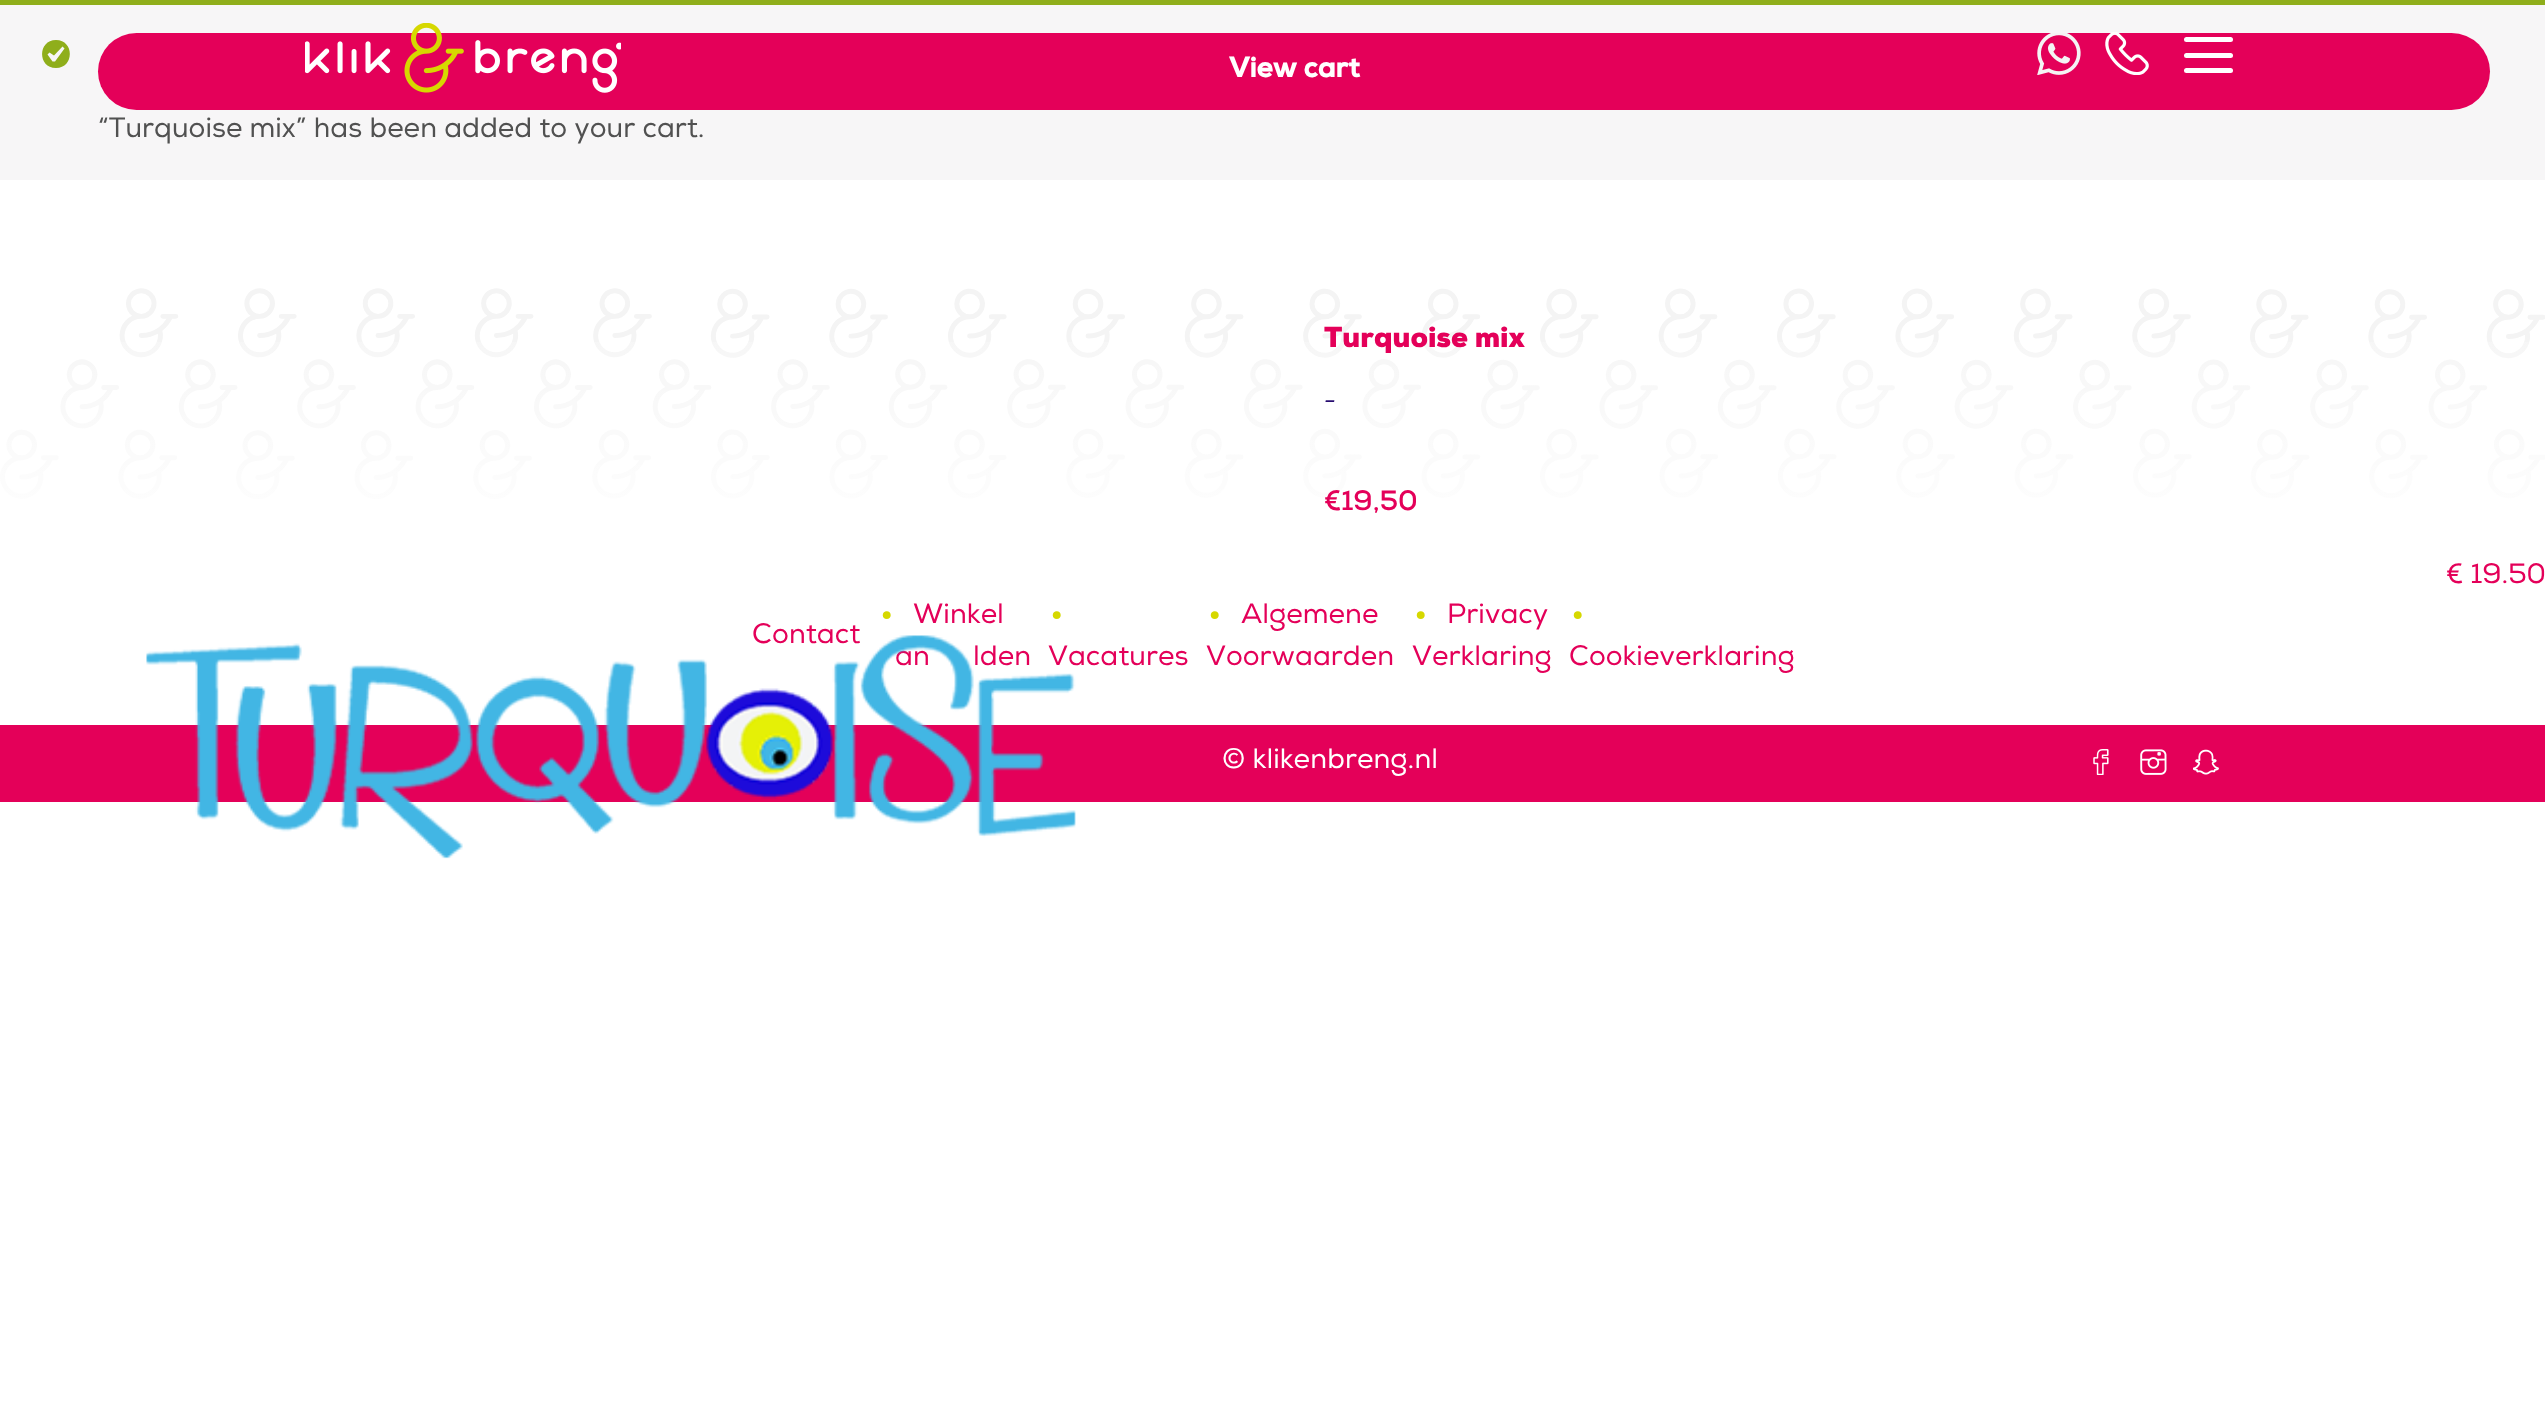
<!DOCTYPE html>
<meta charset="utf-8">
<style>body { margin: 0 } canvas { display: block }</style>
<canvas id="canvas" width="2545" height="1402"></canvas>
<script type="module">
  const canvas = document.getElementById("canvas");
  const ctx = canvas.getContext("2d");
  ctx.miterLimit = 4;
  ctx.fontKerning = "normal";
  async function loadImage(src) {
    const img = new Image();
    img.src = src;
    await img.decode();
    return img;
  }
  let gradient;

  ctx.fillStyle = "#ffffff";
  ctx.fillRect(0, 0, 2545, 1402);
  ctx.fillStyle = "#f7f6f7";
  ctx.fillRect(0, 5, 2545, 175);
  ctx.fillStyle = "#e40059";
  ctx.beginPath();
  ctx.roundRect(98, 33, 2392, 77, 38.5);
  ctx.fill();
  ctx.drawImage(await loadImage("img1.png"), 305, 23, 316, 70);
  ctx.drawImage(await loadImage("img2.png"), 2037, 33, 44, 42);
  ctx.drawImage(await loadImage("img3.png"), 2105, 32, 44, 43);
  ctx.fillStyle = "#ffffff";
  ctx.beginPath();
  ctx.roundRect(2184, 37, 49, 5, 2.5);
  ctx.fill();
  ctx.beginPath();
  ctx.roundRect(2184, 53, 49, 5, 2.5);
  ctx.fill();
  ctx.beginPath();
  ctx.roundRect(2184, 68, 49, 5, 2.5);
  ctx.fill();
  ctx.fillStyle = "#8fae1b";
  ctx.fillRect(0, 0, 2545, 5);
  ctx.beginPath();
  ctx.moveTo(56, 40);
  ctx.bezierCurveTo(37.5, 40, 37.5, 68, 56, 68);
  ctx.bezierCurveTo(74.5, 68, 74.5, 40, 56, 40);
  ctx.closePath();
  ctx.moveTo(55, 61.5);
  ctx.lineTo(52.5, 61.5);
  ctx.lineTo(47.5, 54.5);
  ctx.lineTo(49.5, 52.5);
  ctx.lineTo(54, 55.5);
  ctx.lineTo(62.5, 46.5);
  ctx.lineTo(64.5, 48.5);
  ctx.closePath();
  ctx.fill();
  ctx.font = "bold 28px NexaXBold";
  ctx.fillStyle = "#ffffff";
  ctx.fillText("View cart", 1229, 77);
  ctx.font = "28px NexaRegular";
  ctx.fillStyle = "#515151";
  ctx.fillText("“Turquoise mix” has been added to your cart.", 98, 137);
  ctx.drawImage(await loadImage("img5.png"), 0, 288, 2545, 211);
  gradient = ctx.createLinearGradient(1273, 280, 1273, 551);
  gradient.addColorStop(0, "rgba(255, 255, 255, 0)");
  gradient.addColorStop(1, "#ffffff");
  ctx.fillStyle = gradient;
  ctx.fillRect(0, 342, 2545, 157);
  ctx.font = "28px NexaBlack";
  ctx.fillStyle = "#e40059";
  ctx.fillText("Turquoise mix", 1324, 347);
  ctx.font = "24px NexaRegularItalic";
  ctx.fillStyle = "#260b6f";
  ctx.fillText("-", 1324, 408);
  ctx.font = "28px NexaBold";
  ctx.fillStyle = "#e40059";
  ctx.fillText("€19,50", 1324, 510);
  ctx.font = "28px NexaRegular";
  ctx.fillText("€ 19.50", 2446, 583);
  ctx.fillText("Contact", 752, 643);
  ctx.fillText("an", 895, 665);
  ctx.fillText("lden", 973, 665);
  ctx.fillText("Vacatures", 1048, 665);
  ctx.fillRect(0, 725, 2545, 77);
  ctx.drawImage(await loadImage("img4.png"), 146, 635, 930, 224);
  ctx.font = "70px NexaRegular";
  ctx.fillStyle = "#d6d800";
  ctx.fillText("·", 878, 635);
  ctx.font = "28px NexaRegular";
  ctx.fillStyle = "#e40059";
  ctx.fillText("Winkel", 913, 623);
  ctx.font = "70px NexaRegular";
  ctx.fillStyle = "#d6d800";
  ctx.fillText("·", 1048, 635);
  ctx.fillText("·", 1206, 635);
  ctx.font = "28px NexaRegular";
  ctx.fillStyle = "#e40059";
  ctx.fillText("Algemene", 1241, 623);
  ctx.fillText("Voorwaarden", 1206, 665);
  ctx.font = "70px NexaRegular";
  ctx.fillStyle = "#d6d800";
  ctx.fillText("·", 1412, 635);
  ctx.font = "28px NexaRegular";
  ctx.fillStyle = "#e40059";
  ctx.fillText("Privacy", 1447, 623);
  ctx.fillText("Verklaring", 1412, 665);
  ctx.font = "70px NexaRegular";
  ctx.fillStyle = "#d6d800";
  ctx.fillText("·", 1569, 635);
  ctx.font = "28px NexaRegular";
  ctx.fillStyle = "#e40059";
  ctx.fillText("Cookieverklaring", 1569, 665);
  ctx.fillStyle = "#ffffff";
  ctx.fillText("© klikenbreng.nl", 1222, 768);
  ctx.drawImage(await loadImage("img6.png"), 2093, 749, 16, 26);
  ctx.drawImage(await loadImage("img7.png"), 2140, 749, 27, 26);
  ctx.drawImage(await loadImage("img8.png"), 2193, 749, 26, 26);
</script>
